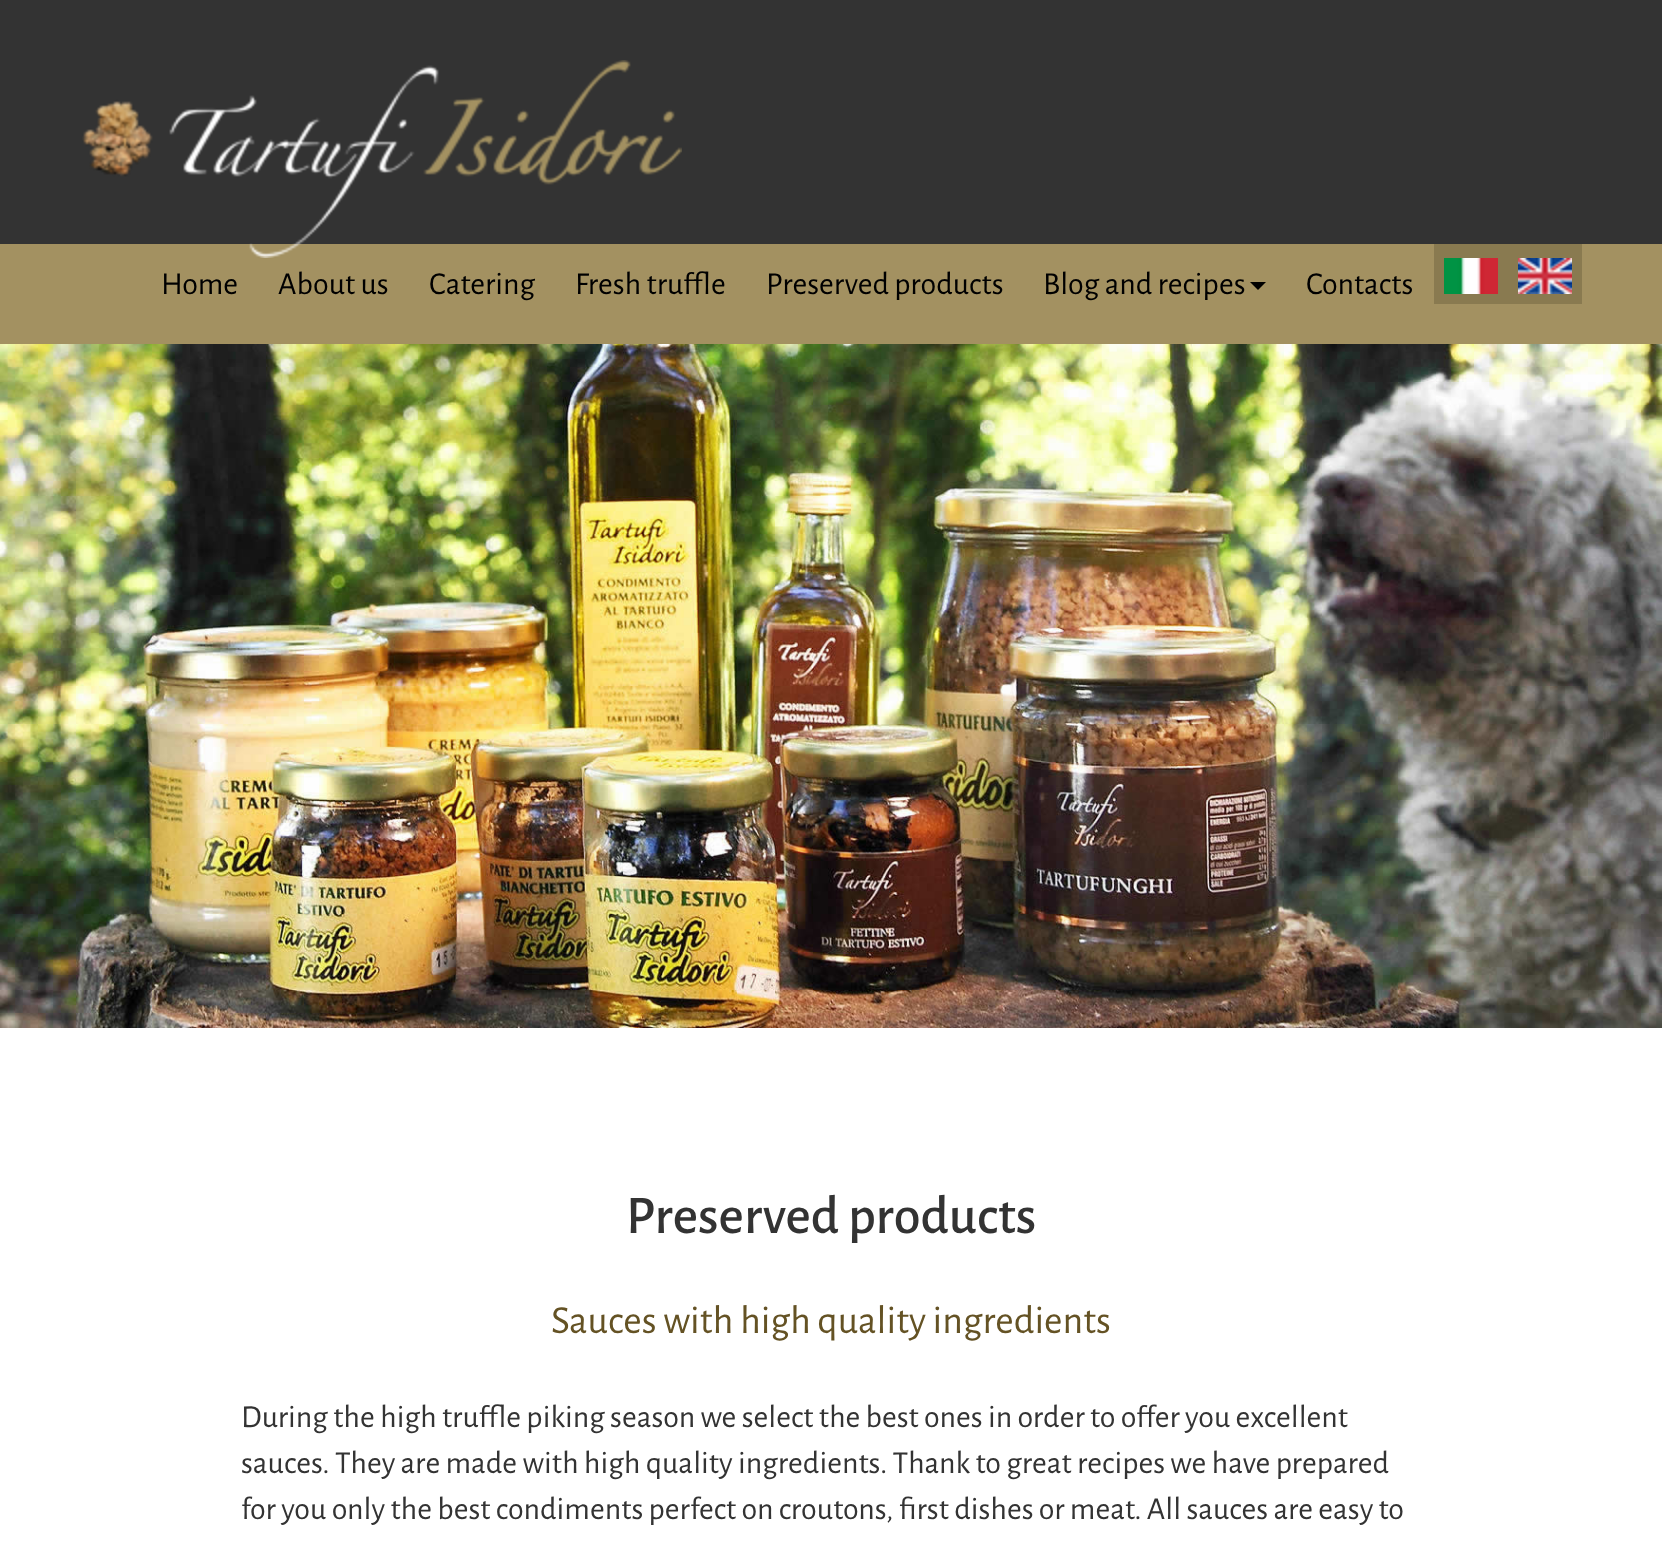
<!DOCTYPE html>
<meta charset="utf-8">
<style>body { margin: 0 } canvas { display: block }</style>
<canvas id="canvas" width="1662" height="1555"></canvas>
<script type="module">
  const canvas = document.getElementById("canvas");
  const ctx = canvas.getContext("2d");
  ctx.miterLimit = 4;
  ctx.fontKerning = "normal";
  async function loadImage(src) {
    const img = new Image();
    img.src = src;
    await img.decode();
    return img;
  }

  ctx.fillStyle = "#ffffff";
  ctx.fillRect(0, 0, 1662, 1555);
  ctx.fillStyle = "#333333";
  ctx.fillRect(0, 0, 1662, 244);
  ctx.fillStyle = "#a39161";
  ctx.fillRect(0, 244, 1662, 100);
  ctx.drawImage(await loadImage("img1.png"), 82, 60, 600, 198);
  ctx.fillStyle = "#897a50";
  ctx.fillRect(1434, 244, 148, 60);
  ctx.drawImage(await loadImage("img2.png"), 1444, 258, 54, 36);
  ctx.font = "32px Alegreya Sans";
  ctx.fillStyle = "#000000";
  ctx.fillText("Home", 161, 294);
  ctx.fillText("About us", 278, 294);
  ctx.fillText("Catering", 429, 294);
  ctx.fillText("Fresh truffle", 575, 294);
  ctx.fillText("Preserved products", 766, 294);
  ctx.fillText("Blog and recipes", 1043, 294);
  ctx.beginPath();
  ctx.moveTo(1250, 282);
  ctx.lineTo(1266, 282);
  ctx.lineTo(1258, 290);
  ctx.closePath();
  ctx.fill();
  ctx.fillText("Contacts", 1306, 294);
  ctx.drawImage(await loadImage("img3.png"), 1518, 258, 54, 36);
  ctx.drawImage(await loadImage("img4.png"), 0, 344, 1662, 684);
  ctx.font = "500 54.5px Alegreya Sans";
  ctx.fillStyle = "#333333";
  ctx.fillText("Preserved products", 626, 1233);
  ctx.font = "40px Alegreya Sans";
  ctx.fillStyle = "#645224";
  ctx.fillText("Sauces with high quality ingredients", 551, 1333);
  ctx.font = "32px Alegreya Sans";
  ctx.fillStyle = "#333333";
  ctx.fillText("During the high truffle piking season we select the best ones in order to offer you excellent", 241, 1427);
  ctx.fillText("sauces. They are made with high quality ingredients. Thank to great recipes we have prepared", 241, 1473);
  ctx.fillText("for you only the best condiments perfect on croutons, first dishes or meat. All sauces are easy to", 241, 1519);
</script>
